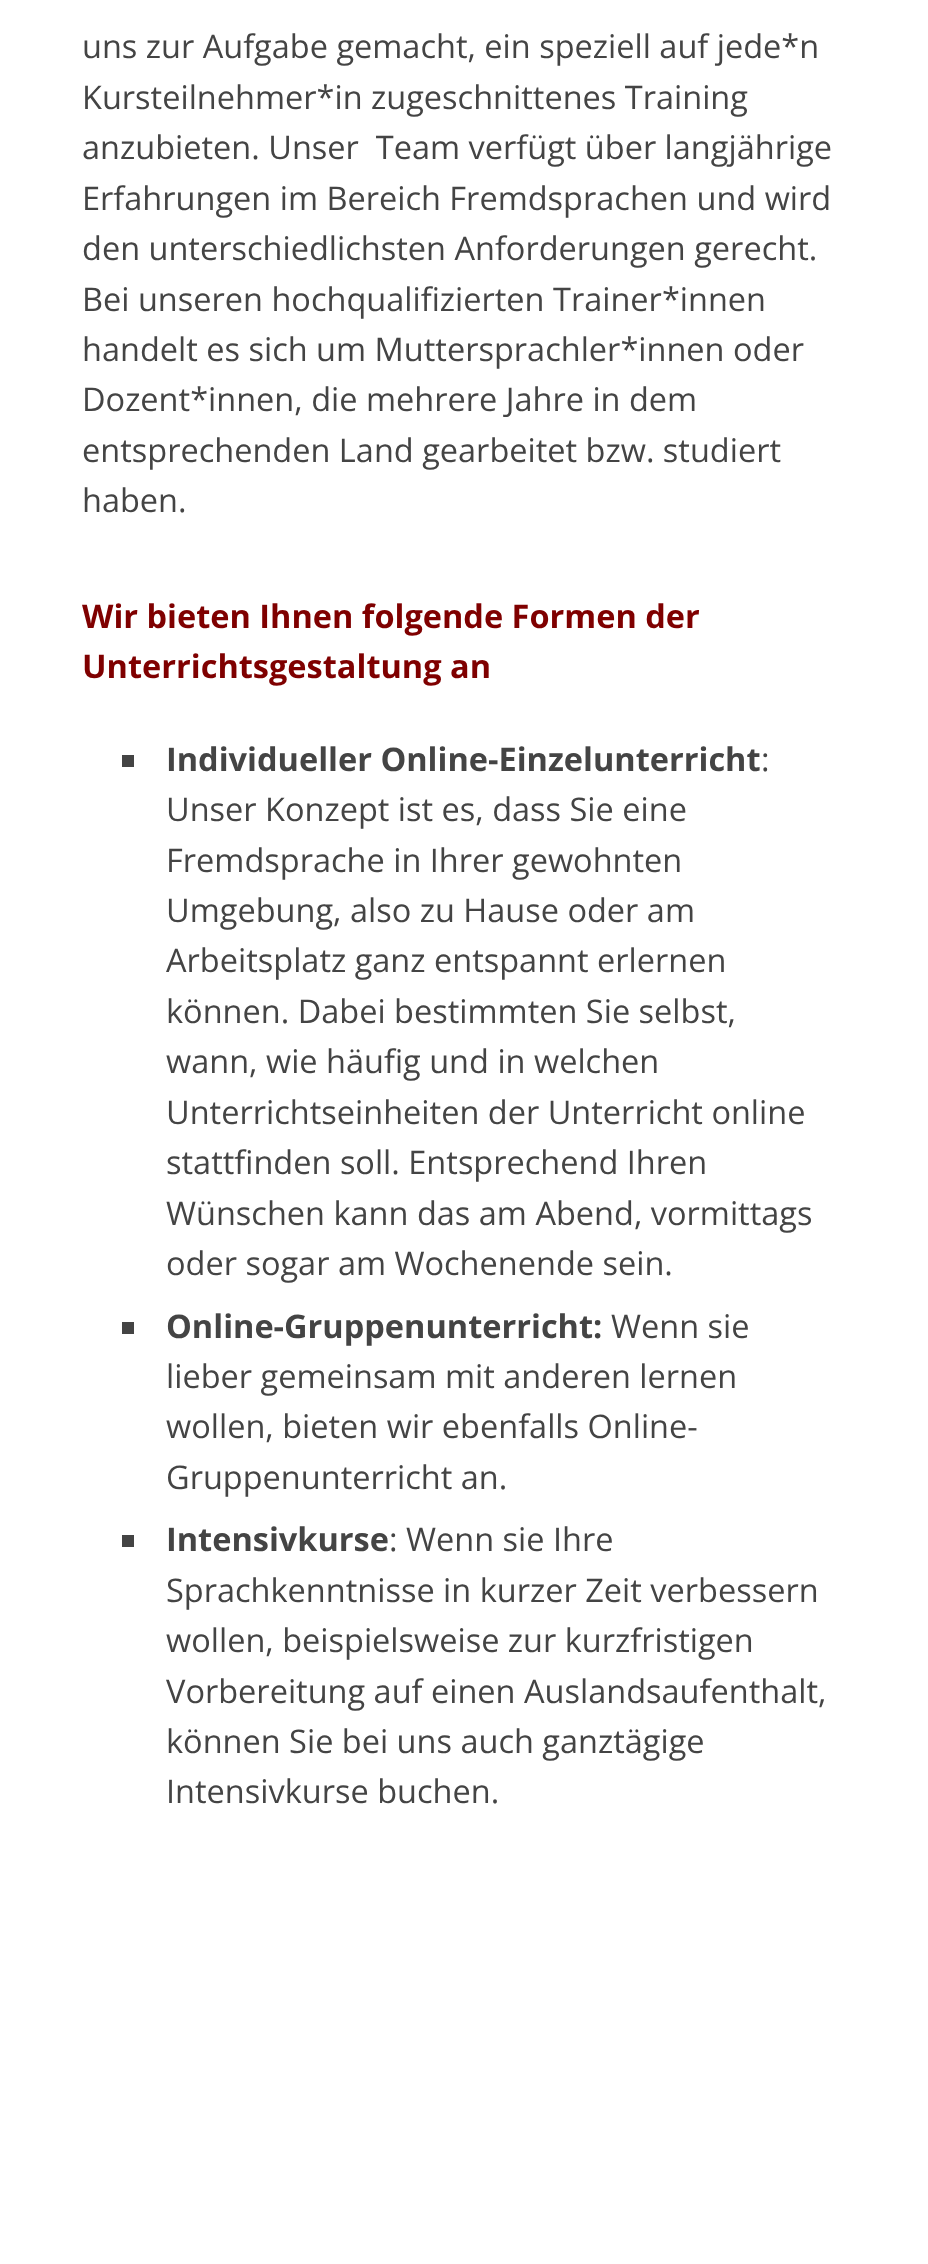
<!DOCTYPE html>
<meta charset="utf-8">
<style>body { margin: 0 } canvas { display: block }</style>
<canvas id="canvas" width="928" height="2264"></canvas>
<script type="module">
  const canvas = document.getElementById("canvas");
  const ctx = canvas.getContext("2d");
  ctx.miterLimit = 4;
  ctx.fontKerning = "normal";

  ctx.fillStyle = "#ffffff";
  ctx.fillRect(0, 0, 928, 2264);
  ctx.font = "32.5px Open Sans";
  ctx.fillStyle = "#444444";
  ctx.fillText("uns zur Aufgabe gemacht, ein speziell auf jede*n", 82, 58);
  ctx.fillText("Kursteilnehmer*in zugeschnittenes Training", 82, 109);
  ctx.fillText("anzubieten. Unser  Team verfügt über langjährige", 82, 159);
  ctx.fillText("Erfahrungen im Bereich Fremdsprachen und wird", 82, 210);
  ctx.fillText("den unterschiedlichsten Anforderungen gerecht.", 82, 260);
  ctx.fillText("Bei unseren hochqualifizierten Trainer*innen", 82, 311);
  ctx.fillText("handelt es sich um Muttersprachler*innen oder", 82, 361);
  ctx.fillText("Dozent*innen, die mehrere Jahre in dem", 82, 411);
  ctx.fillText("entsprechenden Land gearbeitet bzw. studiert", 82, 462);
  ctx.fillText("haben.", 82, 512);
  ctx.font = "bold 32.5px Open Sans";
  ctx.fillStyle = "#7f0000";
  ctx.fillText("Wir bieten Ihnen folgende Formen der", 82, 628);
  ctx.fillText("Unterrichtsgestaltung an", 82, 678);
  ctx.fillStyle = "#444444";
  ctx.fillRect(122, 755, 12, 12);
  ctx.fillText("Individueller Online-Einzelunterricht", 166, 771);
  ctx.font = "32.5px Open Sans";
  ctx.fillText(":", 761, 771);
  ctx.fillText("Unser Konzept ist es, dass Sie eine", 166, 821);
  ctx.fillText("Fremdsprache in Ihrer gewohnten", 166, 872);
  ctx.fillText("Umgebung, also zu Hause oder am", 166, 922);
  ctx.fillText("Arbeitsplatz ganz entspannt erlernen", 166, 972);
  ctx.fillText("können. Dabei bestimmten Sie selbst,", 166, 1023);
  ctx.fillText("wann, wie häufig und in welchen", 166, 1073);
  ctx.fillText("Unterrichtseinheiten der Unterricht online", 166, 1124);
  ctx.fillText("stattfinden soll. Entsprechend Ihren", 166, 1174);
  ctx.fillText("Wünschen kann das am Abend, vormittags", 166, 1225);
  ctx.fillText("oder sogar am Wochenende sein.", 166, 1275);
  ctx.fillRect(122, 1322, 12, 12);
  ctx.font = "bold 32.5px Open Sans";
  ctx.fillText("Online-Gruppenunterricht:", 166, 1338);
  ctx.font = "32.5px Open Sans";
  ctx.fillText("Wenn sie", 611, 1338);
  ctx.fillText("lieber gemeinsam mit anderen lernen", 166, 1388);
  ctx.fillText("wollen, bieten wir ebenfalls Online-", 166, 1438);
  ctx.fillText("Gruppenunterricht an.", 166, 1489);
  ctx.fillRect(122, 1535, 12, 12);
  ctx.font = "bold 32.5px Open Sans";
  ctx.fillText("Intensivkurse", 166, 1551);
  ctx.font = "32.5px Open Sans";
  ctx.fillText(": Wenn sie Ihre", 389, 1551);
  ctx.fillText("Sprachkenntnisse in kurzer Zeit verbessern", 166, 1602);
  ctx.fillText("wollen, beispielsweise zur kurzfristigen", 166, 1652);
  ctx.fillText("Vorbereitung auf einen Auslandsaufenthalt,", 166, 1703);
  ctx.fillText("können Sie bei uns auch ganztägige", 166, 1753);
  ctx.fillText("Intensivkurse buchen.", 166, 1803);
</script>
